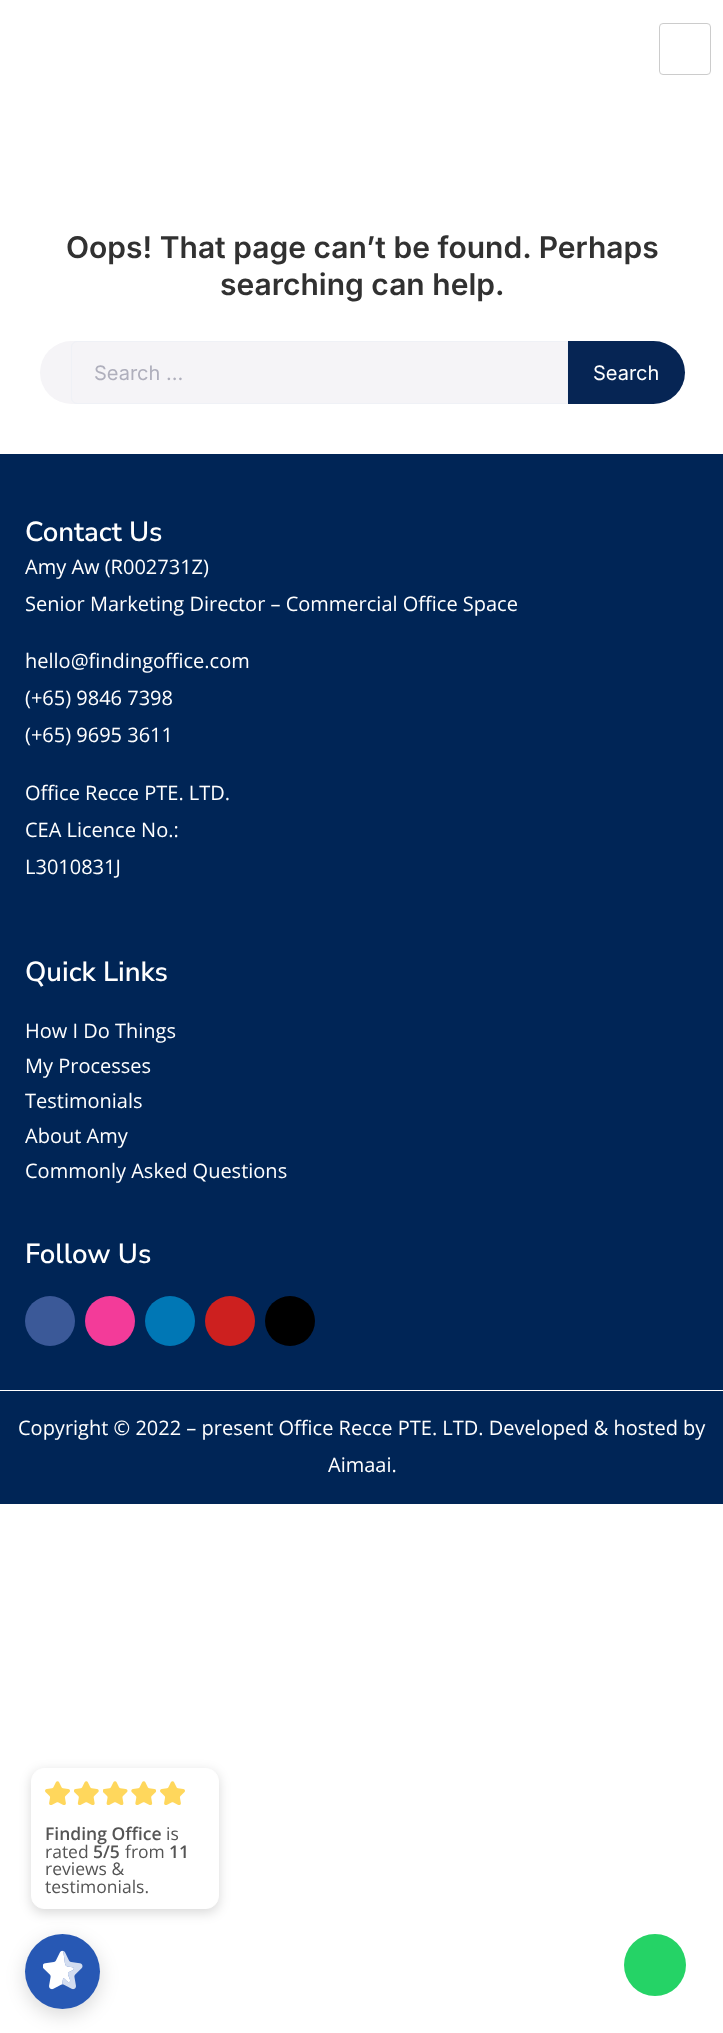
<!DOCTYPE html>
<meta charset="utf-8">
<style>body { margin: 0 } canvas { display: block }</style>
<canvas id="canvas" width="723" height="2033"></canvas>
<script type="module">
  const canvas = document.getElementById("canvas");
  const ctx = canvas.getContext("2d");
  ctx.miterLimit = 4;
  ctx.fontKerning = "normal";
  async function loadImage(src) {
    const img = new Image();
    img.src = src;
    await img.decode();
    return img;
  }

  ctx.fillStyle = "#ffffff";
  ctx.fillRect(0, 0, 723, 2033);
  ctx.beginPath();
  ctx.roundRect(659.5, 23.5, 51, 51, 3.5);
  ctx.strokeStyle = "#cccccc";
  ctx.stroke();
  ctx.font = "600 30px Inter";
  ctx.fillStyle = "#313131";
  ctx.fillText("Oops! That page can’t be found. Perhaps", 66, 258);
  ctx.fillText("searching can help.", 220, 295);
  ctx.fillStyle = "#f5f4f7";
  ctx.beginPath();
  ctx.roundRect(40, 341, 645, 63, 31.5);
  ctx.fill();
  ctx.beginPath();
  ctx.roundRect(71.5, 341.5, 496, 62, [5.5, 0, 0, 5.5]);
  ctx.strokeStyle = "#eff1f6";
  ctx.stroke();
  ctx.font = "20px Inter";
  ctx.fillStyle = "#afafbc";
  ctx.fillText("Search …", 94, 380);
  ctx.fillStyle = "#062554";
  ctx.beginPath();
  ctx.roundRect(568, 341, 117, 63, [0, 31.5, 31.5, 0]);
  ctx.fill();
  ctx.fillStyle = "#ffffff";
  ctx.fillText("Search", 593, 380);
  ctx.fillStyle = "#002556";
  ctx.fillRect(0, 454, 723, 1050);
  ctx.font = "600 27.5px Nunito Sans";
  ctx.fillStyle = "#ffffff";
  ctx.fillText("Contact Us", 25, 541);
  ctx.font = "20px Open Sans";
  ctx.fillText("Amy Aw (R002731Z)", 25, 574);
  ctx.fillText("Senior Marketing Director – Commercial Office Space", 25, 611);
  ctx.fillText("hello@findingoffice.com", 25, 668);
  ctx.fillText("(+65) 9846 7398", 25, 705);
  ctx.fillText("(+65) 9695 3611", 25, 742);
  ctx.fillText("Office Recce PTE. LTD.", 25, 800);
  ctx.fillText("CEA Licence No.:", 25, 837);
  ctx.fillText("L3010831J", 25, 874);
  ctx.font = "600 27.5px Nunito Sans";
  ctx.fillText("Quick Links", 25, 981);
  ctx.font = "20px Open Sans";
  ctx.fillText("How I Do Things", 25, 1038);
  ctx.fillText("My Processes", 25, 1073);
  ctx.fillText("Testimonials", 25, 1108);
  ctx.fillText("About Amy", 25, 1143);
  ctx.fillText("Commonly Asked Questions", 25, 1178);
  ctx.font = "600 27.5px Nunito Sans";
  ctx.fillText("Follow Us", 25, 1263);
  ctx.fillStyle = "#3b5998";
  ctx.beginPath();
  ctx.arc(50, 1321, 25, 0, Math.PI * 2);
  ctx.fill();
  ctx.fillStyle = "#f33b99";
  ctx.beginPath();
  ctx.arc(110, 1321, 25, 0, Math.PI * 2);
  ctx.fill();
  ctx.fillStyle = "#0077b5";
  ctx.beginPath();
  ctx.arc(170, 1321, 25, 0, Math.PI * 2);
  ctx.fill();
  ctx.fillStyle = "#cd201f";
  ctx.beginPath();
  ctx.arc(230, 1321, 25, 0, Math.PI * 2);
  ctx.fill();
  ctx.fillStyle = "#000000";
  ctx.beginPath();
  ctx.arc(290, 1321, 25, 0, Math.PI * 2);
  ctx.fill();
  ctx.fillStyle = "#ffffff";
  ctx.fillRect(0, 1390, 723, 1);
  ctx.font = "20px Open Sans";
  ctx.fillText("Copyright © 2022 – present Office Recce PTE. LTD. Developed & hosted by", 18, 1435);
  ctx.fillText("Aimaai.", 328, 1472);
  ctx.fillStyle = "#25d366";
  ctx.beginPath();
  ctx.arc(655, 1965, 31, 0, Math.PI * 2);
  ctx.fill();
  ctx.fillStyle = "rgba(0, 0, 0, 0.15)";
  ctx.filter = "blur(6px)";
  ctx.beginPath();
  ctx.roundRect(31, 1771, 188, 142, 13);
  ctx.fill();
  ctx.filter = "none";
  ctx.fillStyle = "#ffffff";
  ctx.beginPath();
  ctx.roundRect(31.5, 1768.5, 187, 140, 12.5);
  ctx.fill();
  ctx.strokeStyle = "#ffffff";
  ctx.stroke();
  ctx.drawImage(await loadImage("img1.png"), 45, 1781, 25, 24);
  ctx.drawImage(await loadImage("img2.png"), 74, 1781, 25, 24);
  ctx.drawImage(await loadImage("img3.png"), 103, 1781, 25, 24);
  ctx.drawImage(await loadImage("img4.png"), 131, 1781, 25, 24);
  ctx.drawImage(await loadImage("img1.png"), 160, 1781, 25, 24);
  ctx.font = "600 17.5px Open Sans";
  ctx.fillStyle = "#555555";
  ctx.fillText("Finding Office", 45, 1840);
  ctx.font = "17.5px Open Sans";
  ctx.fillText("is", 166, 1840);
  ctx.fillText("rated", 45, 1858);
  ctx.font = "600 17.5px Open Sans";
  ctx.fillText("5/5", 93, 1858);
  ctx.font = "17.5px Open Sans";
  ctx.fillText("from", 125, 1858);
  ctx.font = "600 17.5px Open Sans";
  ctx.fillText("11", 169, 1858);
  ctx.font = "17.5px Open Sans";
  ctx.fillText("reviews &", 45, 1875);
  ctx.fillText("testimonials.", 45, 1893);
  ctx.fillStyle = "rgba(0, 0, 0, 0.15)";
  ctx.filter = "blur(9.5px)";
  ctx.beginPath();
  ctx.roundRect(25, 1940, 75, 75, 37.5);
  ctx.fill();
  ctx.filter = "none";
  ctx.fillStyle = "#2758b4";
  ctx.beginPath();
  ctx.arc(62.5, 1971.5, 37.5, 0, Math.PI * 2);
  ctx.fill();
  ctx.drawImage(await loadImage("img5.png"), 43, 1950, 40, 40);
</script>
